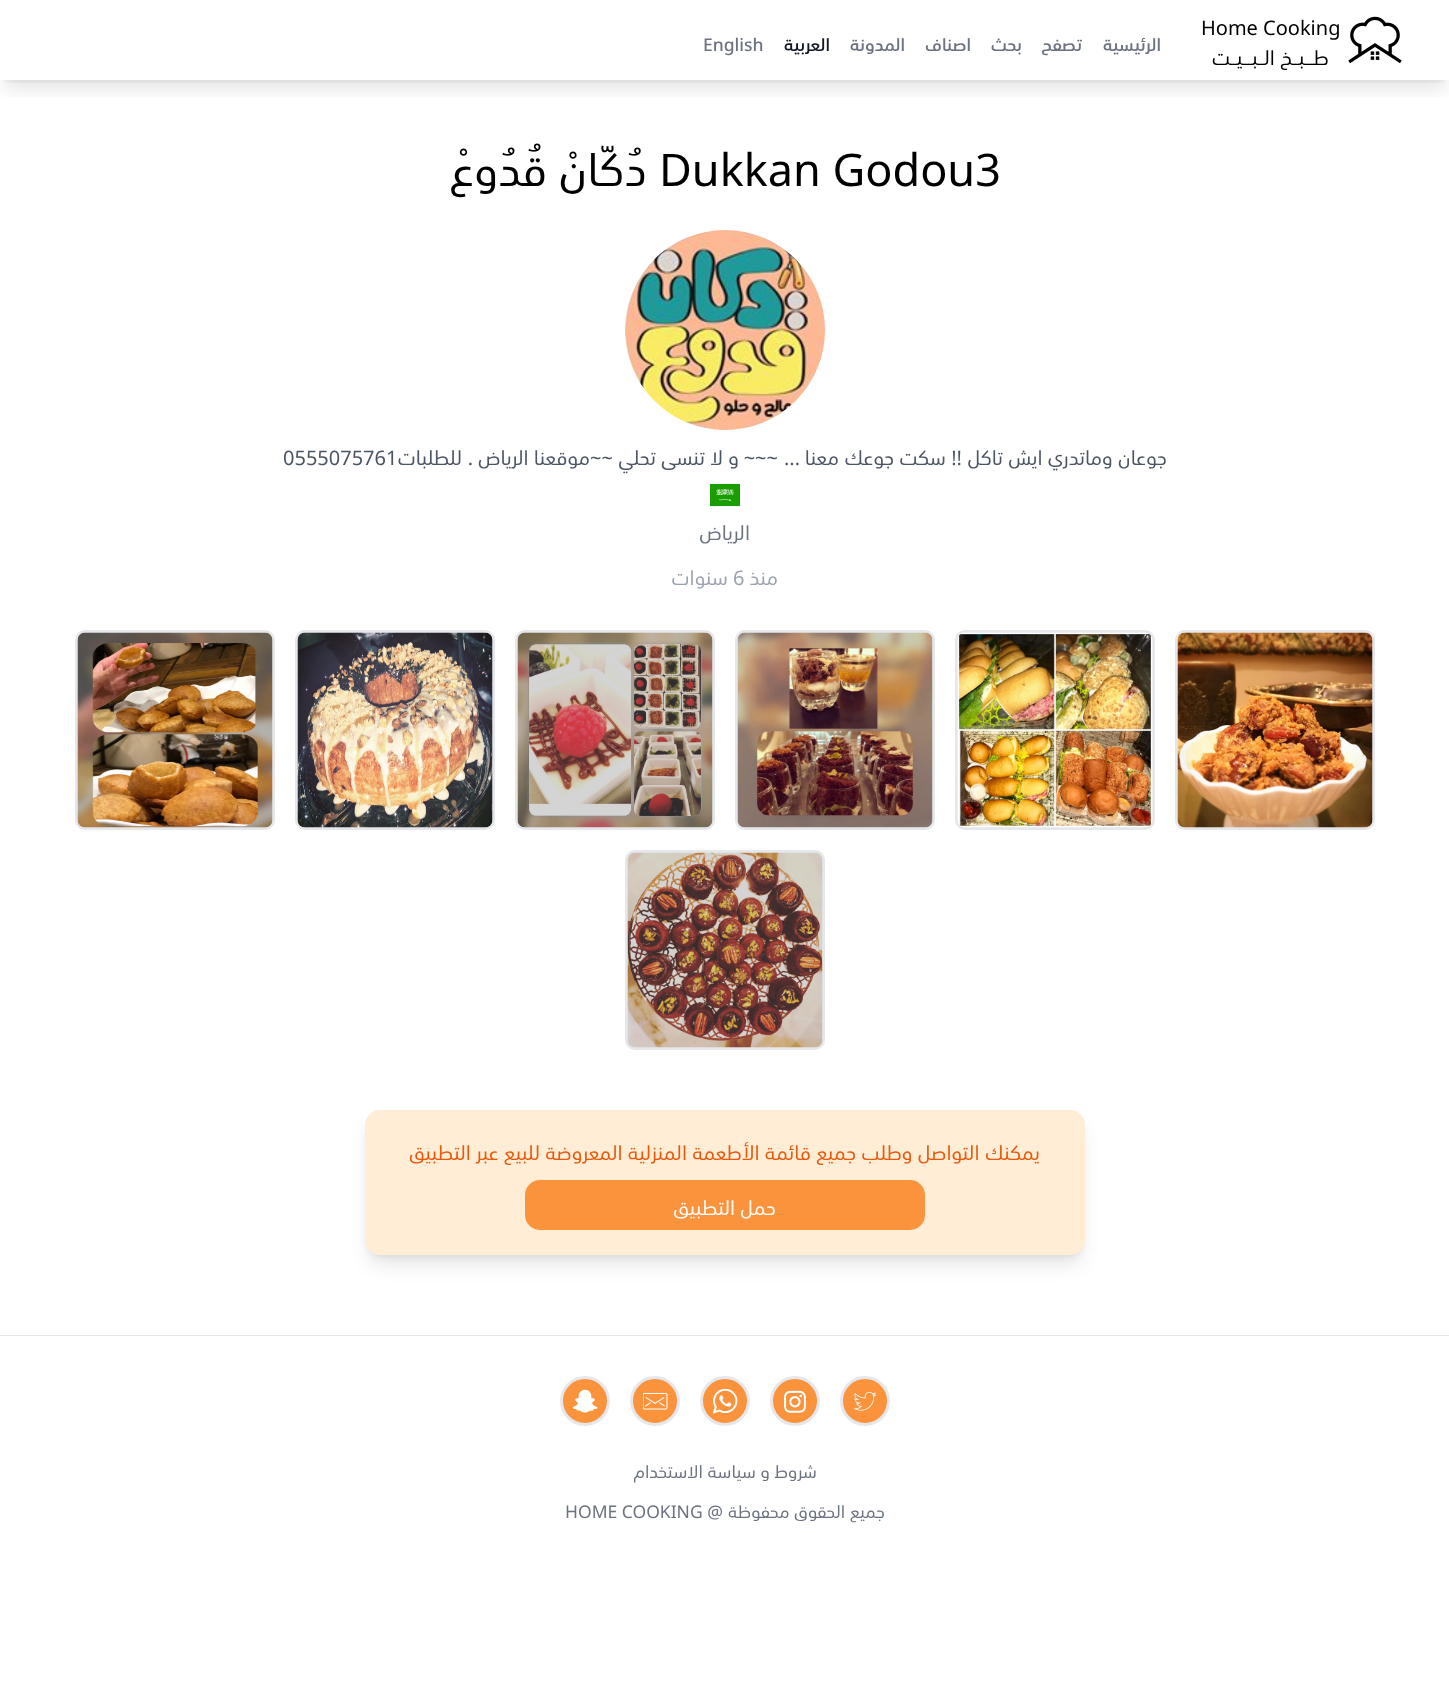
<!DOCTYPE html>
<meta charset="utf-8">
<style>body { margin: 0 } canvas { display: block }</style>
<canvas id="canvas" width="1449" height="1686"></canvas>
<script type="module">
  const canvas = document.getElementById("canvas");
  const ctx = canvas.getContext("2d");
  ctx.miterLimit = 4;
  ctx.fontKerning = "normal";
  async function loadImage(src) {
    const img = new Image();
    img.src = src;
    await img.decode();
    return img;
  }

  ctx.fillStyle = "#ffffff";
  ctx.fillRect(0, 0, 1449, 1686);
  ctx.save();
  ctx.beginPath();
  ctx.rect(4, 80, 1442, 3);
  ctx.clip();
  ctx.fillStyle = "rgba(0, 0, 0, 0.1)";
  ctx.filter = "blur(4px)";
  ctx.beginPath();
  ctx.rect(5, 10, 1440, 70);
  ctx.fill();
  ctx.filter = "none";
  ctx.restore();
  ctx.save();
  ctx.beginPath();
  ctx.rect(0, 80, 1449, 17);
  ctx.clip();
  ctx.fillStyle = "rgba(0, 0, 0, 0.1)";
  ctx.filter = "blur(9.5px)";
  ctx.beginPath();
  ctx.rect(4, 16, 1442, 73);
  ctx.fill();
  ctx.filter = "none";
  ctx.restore();
  ctx.drawImage(await loadImage("img1.png"), 1348, 16, 54, 48);
  ctx.font = "20px Noto Sans";
  ctx.fillStyle = "#000000";
  ctx.fillText("Home Cooking", 1201, 35);
  ctx.direction = "rtl";
  ctx.font = "20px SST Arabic";
  ctx.fillText("طـــبــخ الــبـــيــت", 1329, 65);
  ctx.font = "500 17.5px SST Arabic";
  ctx.fillStyle = "#6b7280";
  ctx.fillText("الرئيسية", 1161, 51);
  ctx.fillText("تصفح", 1082, 51);
  ctx.fillText("بحث", 1022, 51);
  ctx.fillText("اصناف", 971, 51);
  ctx.fillText("المدونة", 905, 51);
  ctx.fillStyle = "#111827";
  ctx.fillText("العربية", 830, 51);
  ctx.direction = "ltr";
  ctx.font = "500 17.5px Noto Sans";
  ctx.fillStyle = "#6b7280";
  ctx.fillText("English", 703, 51);
  ctx.font = "45px Noto Sans";
  ctx.fillStyle = "#000000";
  ctx.fillText("Dukkan Godou3", 659, 186);
  ctx.direction = "rtl";
  ctx.font = "45px SST Arabic";
  ctx.fillText("دُكّانْ قُدُوعْ", 647, 186);
  ctx.drawImage(await loadImage("img2.png"), 625, 230, 200, 200);
  ctx.font = "20px SST Arabic";
  ctx.fillStyle = "#4b5563";
  ctx.fillText("جوعان وماتدري ايش تاكل", 1167, 465);
  ctx.font = "20px Noto Sans";
  ctx.fillText("!!", 962, 465);
  ctx.font = "20px SST Arabic";
  ctx.fillText("سكت جوعك معنا", 946, 465);
  ctx.font = "20px Noto Sans";
  ctx.fillText("~~~", 778, 465);
  ctx.font = "20px SST Arabic";
  ctx.fillText("و لا تنسى تحلي", 739, 465);
  ctx.font = "20px Noto Sans";
  ctx.fillText("~~", 613, 465);
  ctx.font = "20px SST Arabic";
  ctx.fillText("موقعنا الرياض", 590, 465);
  ctx.fillText("للطلبات", 462, 465);
  ctx.direction = "ltr";
  ctx.font = "20px Noto Sans";
  ctx.fillText("0555075761", 283, 465);
  ctx.direction = "rtl";
  ctx.fillText("...", 800, 465);
  ctx.fillText(".", 473, 465);
  ctx.drawImage(await loadImage("img3.png"), 710, 483, 30, 24);
  ctx.font = "20px SST Arabic";
  ctx.fillStyle = "#6b7280";
  ctx.fillText("الرياض", 750, 540);
  ctx.fillStyle = "#9ca3af";
  ctx.fillText("منذ", 778, 585);
  ctx.direction = "ltr";
  ctx.font = "20px Noto Sans";
  ctx.fillText("6", 733, 585);
  ctx.direction = "rtl";
  ctx.font = "20px SST Arabic";
  ctx.fillText("سنوات", 728, 585);
  ctx.beginPath();
  ctx.roundRect(1176.5, 631.5, 197, 197, 8.5);
  ctx.strokeStyle = "#e5e7eb";
  ctx.lineWidth = 3;
  ctx.stroke();
  ctx.drawImage(await loadImage("img4.png"), 1177, 632, 196, 196);
  ctx.beginPath();
  ctx.roundRect(956.5, 631.5, 197, 197, 8.5);
  ctx.stroke();
  ctx.drawImage(await loadImage("img5.png"), 957, 632, 196, 196);
  ctx.beginPath();
  ctx.roundRect(736.5, 631.5, 197, 197, 8.5);
  ctx.stroke();
  ctx.drawImage(await loadImage("img6.png"), 737, 632, 196, 196);
  ctx.beginPath();
  ctx.roundRect(516.5, 631.5, 197, 197, 8.5);
  ctx.stroke();
  ctx.drawImage(await loadImage("img7.png"), 517, 632, 196, 196);
  ctx.beginPath();
  ctx.roundRect(296.5, 631.5, 197, 197, 8.5);
  ctx.stroke();
  ctx.drawImage(await loadImage("img8.png"), 297, 632, 196, 196);
  ctx.beginPath();
  ctx.roundRect(76.5, 631.5, 197, 197, 8.5);
  ctx.stroke();
  ctx.drawImage(await loadImage("img9.png"), 77, 632, 196, 196);
  ctx.beginPath();
  ctx.roundRect(626.5, 851.5, 197, 197, 8.5);
  ctx.stroke();
  ctx.drawImage(await loadImage("img10.png"), 627, 852, 196, 196);
  ctx.fillStyle = "rgba(0, 0, 0, 0.1)";
  ctx.filter = "blur(4px)";
  ctx.beginPath();
  ctx.roundRect(370, 1120, 710, 135, 10);
  ctx.fill();
  ctx.filter = "none";
  ctx.filter = "blur(9.5px)";
  ctx.beginPath();
  ctx.roundRect(369, 1126, 712, 138, 11);
  ctx.fill();
  ctx.filter = "none";
  ctx.fillStyle = "#ffedd5";
  ctx.beginPath();
  ctx.roundRect(365, 1110, 720, 145, 15);
  ctx.fill();
  ctx.fillStyle = "#ea580c";
  ctx.fillText("يمكنك التواصل وطلب جميع قائمة الأطعمة المنزلية المعروضة للبيع عبر التطبيق", 1040, 1160);
  ctx.fillStyle = "#fb923c";
  ctx.beginPath();
  ctx.roundRect(525, 1180, 400, 50, 15);
  ctx.fill();
  ctx.fillStyle = "#ffffff";
  ctx.fillText("حمل التطبيق", 776, 1215);
  ctx.fillStyle = "#e5e7eb";
  ctx.fillRect(0, 1335, 1449, 1);
  ctx.fillStyle = "#fb923c";
  ctx.beginPath();
  ctx.arc(865, 1401, 23.5, 0, Math.PI * 2);
  ctx.fill();
  ctx.stroke();
  ctx.drawImage(await loadImage("img11.png"), 853, 1391, 24, 20);
  ctx.beginPath();
  ctx.arc(795, 1401, 23.5, 0, Math.PI * 2);
  ctx.fill();
  ctx.stroke();
  ctx.drawImage(await loadImage("img12.png"), 784, 1390, 22, 23);
  ctx.beginPath();
  ctx.arc(725, 1401, 23.5, 0, Math.PI * 2);
  ctx.fill();
  ctx.stroke();
  ctx.drawImage(await loadImage("img13.png"), 713, 1389, 25, 25);
  ctx.beginPath();
  ctx.arc(655, 1401, 23.5, 0, Math.PI * 2);
  ctx.fill();
  ctx.stroke();
  ctx.drawImage(await loadImage("img14.png"), 643, 1392, 25, 18);
  ctx.beginPath();
  ctx.arc(585, 1401, 23.5, 0, Math.PI * 2);
  ctx.fill();
  ctx.stroke();
  ctx.drawImage(await loadImage("img15.png"), 573, 1389, 25, 24);
  ctx.font = "17.5px SST Arabic";
  ctx.fillStyle = "#6b7280";
  ctx.fillText("شروط و سياسة الاستخدام", 817, 1478);
  ctx.fillText("جميع الحقوق محفوظة", 885, 1518);
  ctx.font = "17.5px Noto Sans";
  ctx.fillText("@", 723, 1518);
  ctx.direction = "ltr";
  ctx.fillText("HOME COOKING", 565, 1518);
</script>
